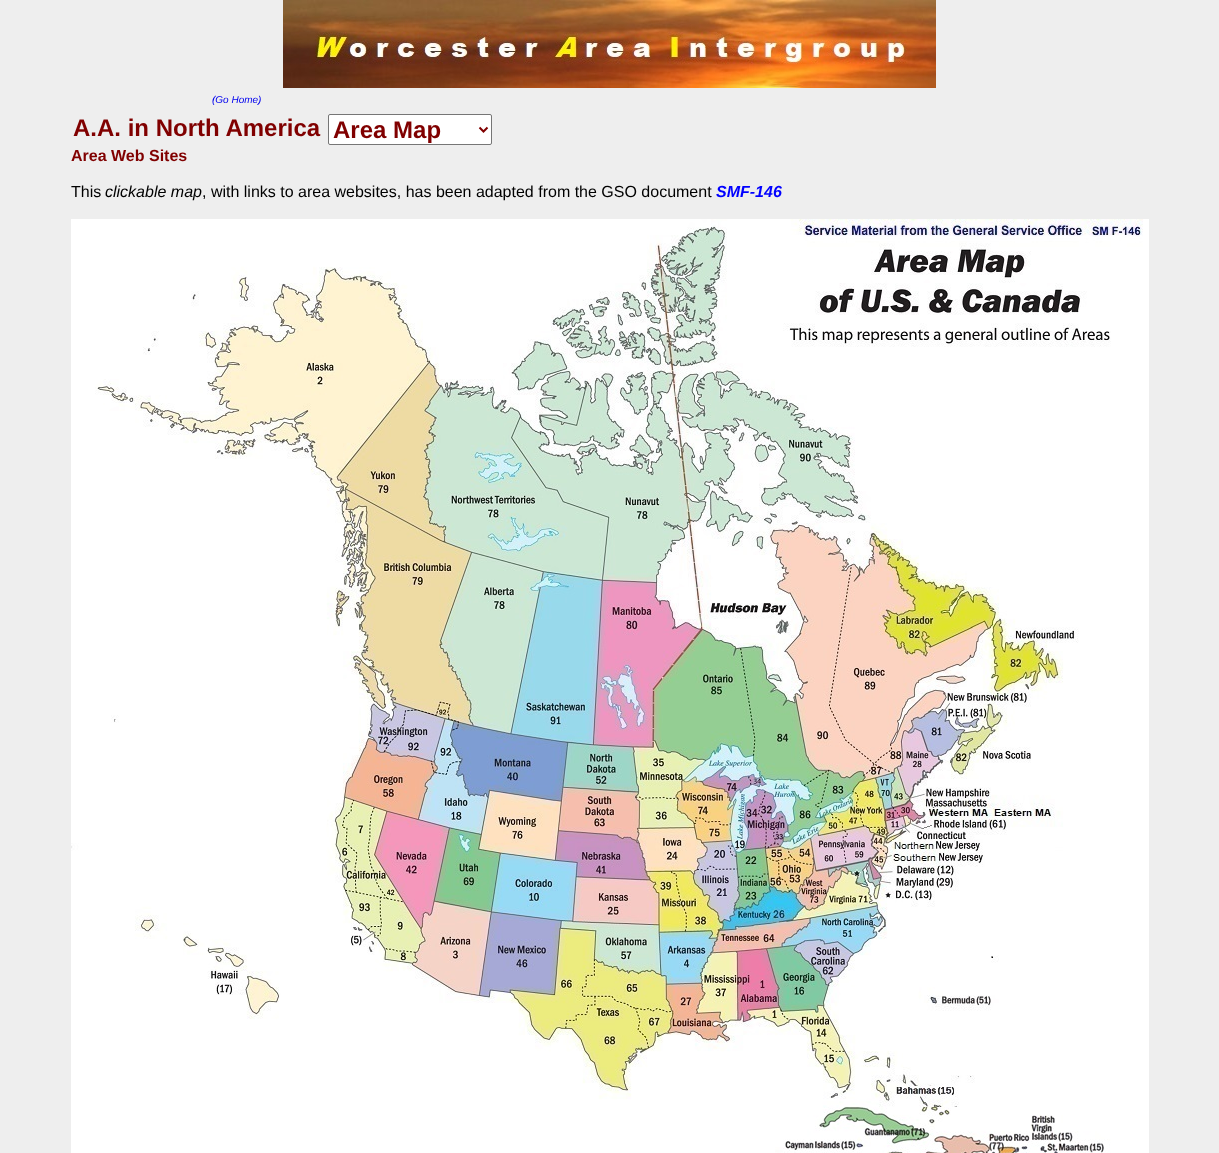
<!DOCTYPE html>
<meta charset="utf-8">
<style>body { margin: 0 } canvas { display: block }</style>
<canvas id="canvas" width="1219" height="1153"></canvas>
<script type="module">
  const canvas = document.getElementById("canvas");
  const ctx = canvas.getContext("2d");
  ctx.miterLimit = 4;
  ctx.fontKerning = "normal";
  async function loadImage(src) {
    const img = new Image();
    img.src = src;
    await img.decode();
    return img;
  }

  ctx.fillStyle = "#eeeeee";
  ctx.fillRect(0, 0, 1219, 1153);
  ctx.drawImage(await loadImage("img1.png"), 283, 0, 653, 88);
  ctx.font = "italic 10px Liberation Sans";
  ctx.fillStyle = "#0000ee";
  ctx.fillText("(Go Home)", 212, 103);
  ctx.font = "bold 24px Liberation Sans";
  ctx.fillStyle = "#800000";
  ctx.fillText("A.A. in North America", 73, 136);
  ctx.fillStyle = "#ffffff";
  ctx.beginPath();
  ctx.roundRect(328.5, 114.5, 163, 30, 1.5);
  ctx.fill();
  ctx.strokeStyle = "#767676";
  ctx.stroke();
  ctx.beginPath();
  ctx.moveTo(479.5, 127.5);
  ctx.lineTo(483.5, 131.5);
  ctx.lineTo(487.5, 127.5);
  ctx.strokeStyle = "#800000";
  ctx.lineWidth = 2;
  ctx.stroke();
  ctx.fillStyle = "#800000";
  ctx.fillText("Area Map", 333, 138);
  ctx.font = "bold 16px Liberation Sans";
  ctx.fillText("Area Web Sites", 71, 161);
  ctx.font = "16px Liberation Sans";
  ctx.fillStyle = "#000000";
  ctx.fillText("This", 71, 197);
  ctx.font = "italic 16px Liberation Sans";
  ctx.fillText("clickable map", 105, 197);
  ctx.font = "16px Liberation Sans";
  ctx.fillText(", with links to area websites, has been adapted from the GSO document", 202, 197);
  ctx.font = "italic bold 16px Liberation Sans";
  ctx.fillStyle = "#0000ff";
  ctx.fillText("SMF-146", 716, 197);
  ctx.drawImage(await loadImage("img2.png"), 71, 219, 1078, 934);
</script>
